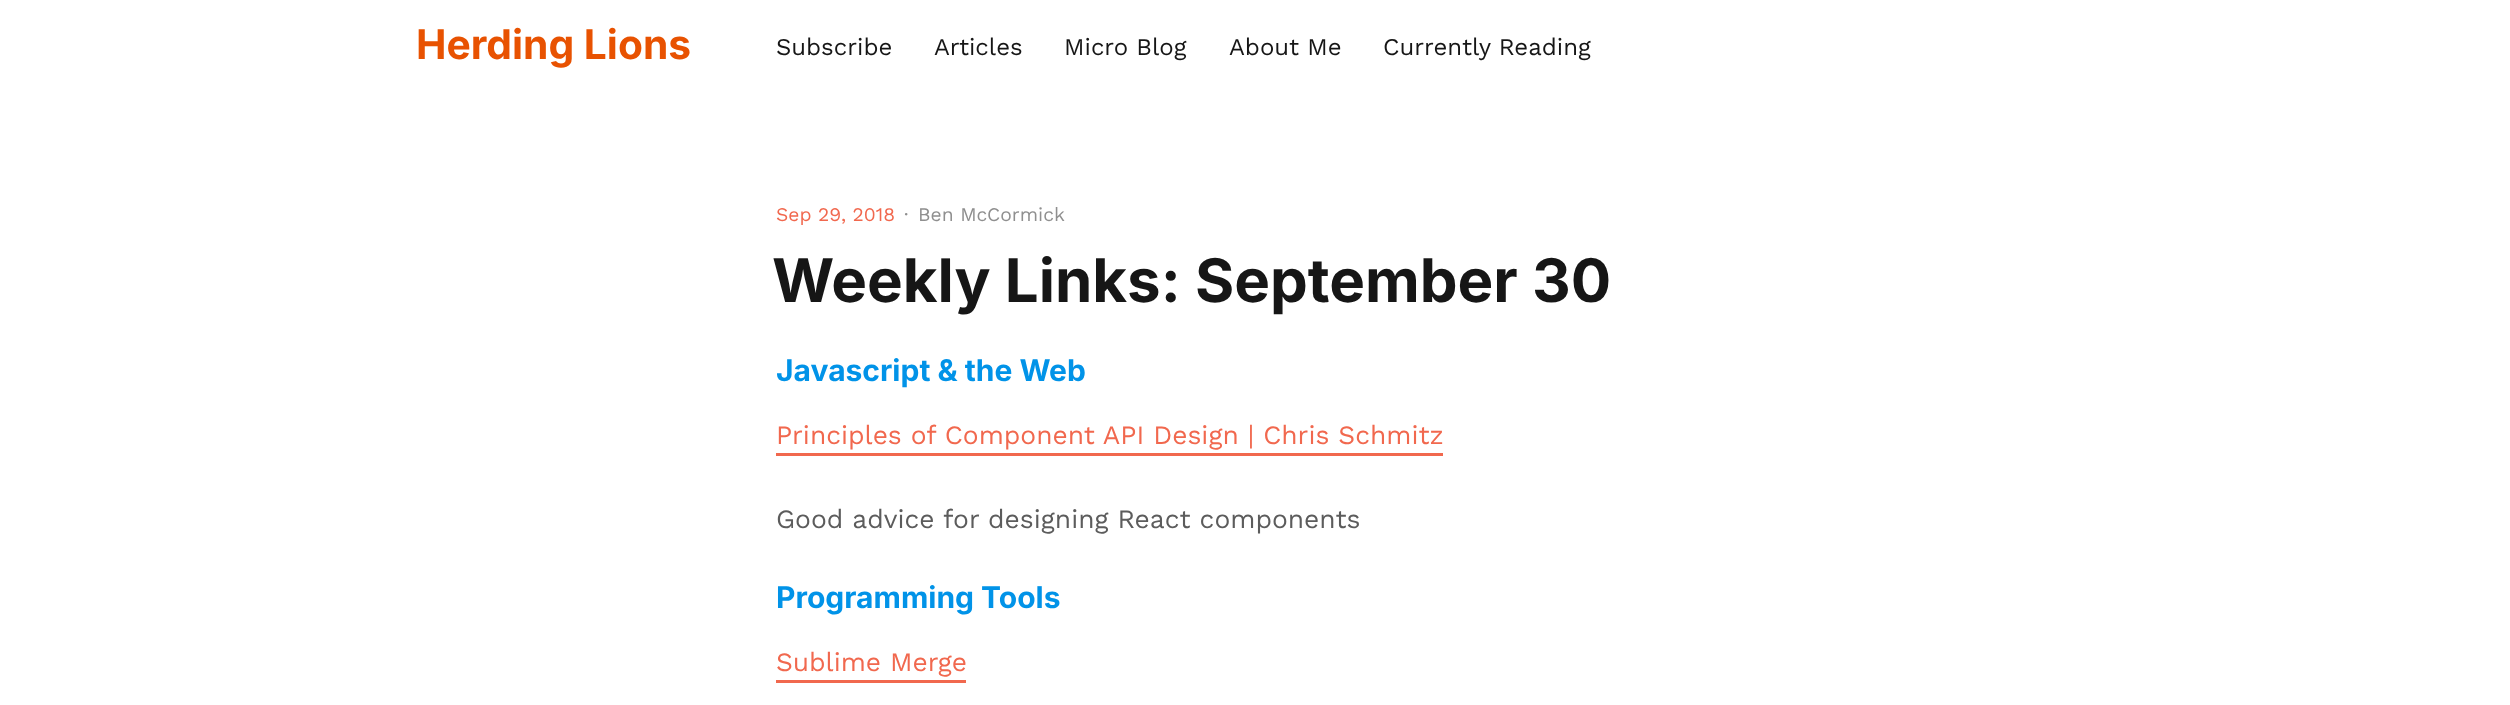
<!DOCTYPE html>
<meta charset="utf-8">
<style>body { margin: 0 } canvas { display: block }</style>
<canvas id="canvas" width="2510" height="705"></canvas>
<script type="module">
  const canvas = document.getElementById("canvas");
  const ctx = canvas.getContext("2d");
  ctx.miterLimit = 4;
  ctx.fontKerning = "normal";

  ctx.fillStyle = "#ffffff";
  ctx.fillRect(0, 0, 2510, 705);
  ctx.font = "bold 40.75px Inter";
  ctx.fillStyle = "#e85201";
  ctx.fillText("Herding Lions", 416, 59);
  ctx.font = "24px Work Sans";
  ctx.fillStyle = "#161616";
  ctx.fillText("Subscribe", 776, 55);
  ctx.fillText("Articles", 934, 55);
  ctx.fillText("Micro Blog", 1064, 55);
  ctx.fillText("About Me", 1229, 55);
  ctx.fillText("Currently Reading", 1383, 55);
  ctx.font = "19.25px Work Sans";
  ctx.fillStyle = "#f1684e";
  ctx.fillText("Sep 29, 2018", 776, 221);
  ctx.fillStyle = "#8f8f8f";
  ctx.fillText("·", 904, 221);
  ctx.fillText("Ben McCormick", 918, 221);
  ctx.font = "bold 60px Inter";
  ctx.fillStyle = "#161616";
  ctx.fillText("Weekly Links: September 30", 772, 302);
  ctx.font = "bold 30px Inter";
  ctx.fillStyle = "#0193e8";
  ctx.fillText("Javascript & the Web", 776, 381);
  ctx.font = "26.4px Work Sans";
  ctx.fillStyle = "#f1684e";
  ctx.fillText("Principles of Component API Design | Chris Schmitz", 776, 444);
  ctx.fillRect(776, 453, 667, 3);
  ctx.fillStyle = "#5c5c5c";
  ctx.fillText("Good advice for designing React components", 776, 528);
  ctx.font = "bold 30px Inter";
  ctx.fillStyle = "#0193e8";
  ctx.fillText("Programming Tools", 776, 608);
  ctx.font = "26.4px Work Sans";
  ctx.fillStyle = "#f1684e";
  ctx.fillText("Sublime Merge", 776, 671);
  ctx.fillRect(776, 680, 190, 3);
</script>
